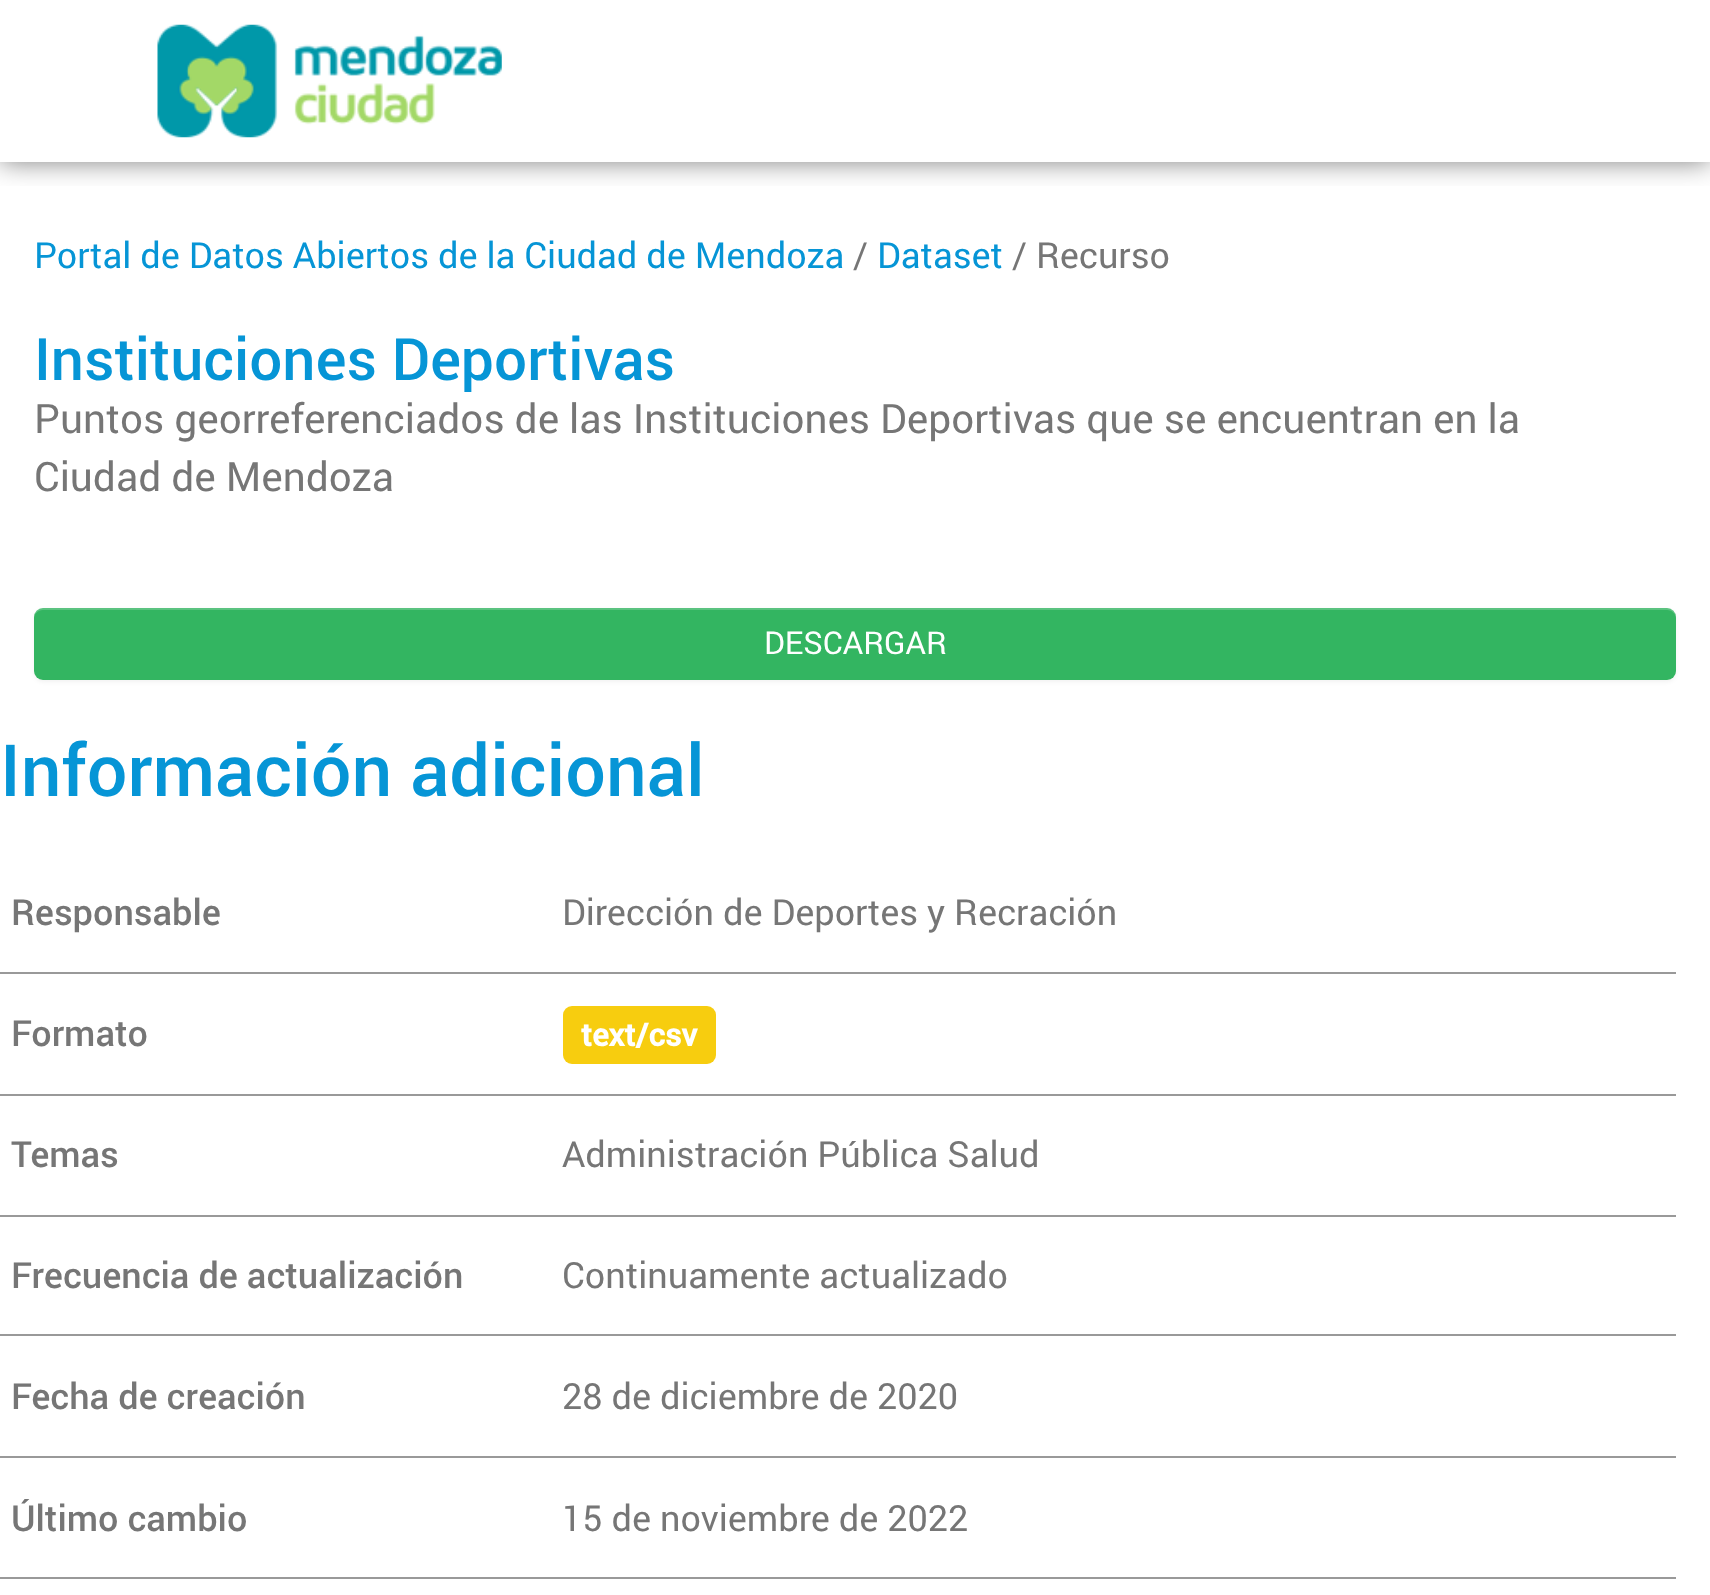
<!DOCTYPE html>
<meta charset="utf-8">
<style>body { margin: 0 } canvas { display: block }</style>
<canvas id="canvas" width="1710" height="1595"></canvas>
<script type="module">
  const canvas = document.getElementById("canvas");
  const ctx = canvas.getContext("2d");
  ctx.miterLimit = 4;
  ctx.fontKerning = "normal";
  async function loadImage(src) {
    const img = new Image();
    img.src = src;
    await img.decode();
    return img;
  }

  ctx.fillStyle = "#ffffff";
  ctx.fillRect(0, 0, 1710, 1595);
  ctx.save();
  ctx.beginPath();
  ctx.rect(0, 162, 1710, 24);
  ctx.clip();
  ctx.fillStyle = "rgba(0, 0, 0, 0.5)";
  ctx.filter = "blur(13.5px)";
  ctx.beginPath();
  ctx.rect(0, 0, 1710, 162);
  ctx.fill();
  ctx.filter = "none";
  ctx.restore();
  ctx.drawImage(await loadImage("img1.png"), 157, 24, 345, 114);
  ctx.font = "36px Roboto";
  ctx.fillStyle = "#0695d6";
  ctx.fillText("Portal de Datos Abiertos de la Ciudad de Mendoza", 34, 268);
  ctx.fillStyle = "#767676";
  ctx.fillText("/", 853, 268);
  ctx.fillStyle = "#0695d6";
  ctx.fillText("Dataset", 877, 268);
  ctx.fillStyle = "#767676";
  ctx.fillText("/ Recurso", 1012, 268);
  ctx.font = "500 58.5px Roboto";
  ctx.fillStyle = "#0695d6";
  ctx.fillText("Instituciones Deportivas", 34, 380);
  ctx.font = "40.5px Roboto";
  ctx.fillStyle = "#767676";
  ctx.fillText("Puntos georreferenciados de las Instituciones Deportivas que se encuentran en la", 34, 433);
  ctx.fillText("Ciudad de Mendoza", 34, 491);
  ctx.fillStyle = "rgba(0, 0, 0, 0.05)";
  ctx.filter = "blur(2px)";
  ctx.beginPath();
  ctx.roundRect(34, 610, 1642, 72, 9);
  ctx.fill();
  ctx.filter = "none";
  ctx.fillStyle = "#33b561";
  ctx.beginPath();
  ctx.roundRect(34, 608, 1642, 72, 9);
  ctx.fill();
  ctx.fillStyle = "rgba(255, 255, 255, 0.2)";
  ctx.beginPath();
  ctx.moveTo(43, 610);
  ctx.lineTo(1667, 610);
  ctx.bezierCurveTo(1672, 610, 1676, 614, 1676, 619);
  ctx.lineTo(1676, 617);
  ctx.bezierCurveTo(1676, 612, 1672, 608, 1667, 608);
  ctx.lineTo(43, 608);
  ctx.bezierCurveTo(38, 608, 34, 612, 34, 617);
  ctx.lineTo(34, 619);
  ctx.bezierCurveTo(34, 614, 38, 610, 43, 610);
  ctx.closePath();
  ctx.fill();
  ctx.font = "31.5px Roboto";
  ctx.fillStyle = "#ffffff";
  ctx.fillText("DESCARGAR", 764, 654);
  ctx.font = "500 72px Roboto";
  ctx.fillStyle = "#0695d6";
  ctx.fillText("Información adicional", 0, 796);
  ctx.fillStyle = "#999999";
  ctx.fillRect(0, 972, 1676, 2);
  ctx.font = "500 36px Roboto";
  ctx.fillStyle = "#767676";
  ctx.fillText("Responsable", 11, 925);
  ctx.font = "36px Roboto";
  ctx.fillText("Dirección de Deportes y Recración", 562, 925);
  ctx.fillStyle = "#999999";
  ctx.fillRect(0, 1094, 1676, 2);
  ctx.font = "500 36px Roboto";
  ctx.fillStyle = "#767676";
  ctx.fillText("Formato", 11, 1046);
  ctx.fillStyle = "#f7cd0f";
  ctx.beginPath();
  ctx.roundRect(563, 1006, 153, 58, 9);
  ctx.fill();
  ctx.font = "bold 31.5px Roboto";
  ctx.fillStyle = "#ffffff";
  ctx.fillText("text/csv", 581, 1046);
  ctx.fillStyle = "#999999";
  ctx.fillRect(0, 1215, 1676, 2);
  ctx.font = "500 36px Roboto";
  ctx.fillStyle = "#767676";
  ctx.fillText("Temas", 11, 1167);
  ctx.font = "36px Roboto";
  ctx.fillText("Administración Pública Salud", 562, 1167);
  ctx.fillStyle = "#999999";
  ctx.fillRect(0, 1334, 1676, 2);
  ctx.font = "500 36px Roboto";
  ctx.fillStyle = "#767676";
  ctx.fillText("Frecuencia de actualización", 11, 1288);
  ctx.font = "36px Roboto";
  ctx.fillText("Continuamente actualizado", 562, 1288);
  ctx.fillStyle = "#999999";
  ctx.fillRect(0, 1456, 1676, 2);
  ctx.font = "500 36px Roboto";
  ctx.fillStyle = "#767676";
  ctx.fillText("Fecha de creación", 11, 1409);
  ctx.font = "36px Roboto";
  ctx.fillText("28 de diciembre de 2020", 562, 1409);
  ctx.fillStyle = "#999999";
  ctx.fillRect(0, 1577, 1676, 2);
  ctx.font = "500 36px Roboto";
  ctx.fillStyle = "#767676";
  ctx.fillText("Último cambio", 11, 1531);
  ctx.font = "36px Roboto";
  ctx.fillText("15 de noviembre de 2022", 562, 1531);
</script>
